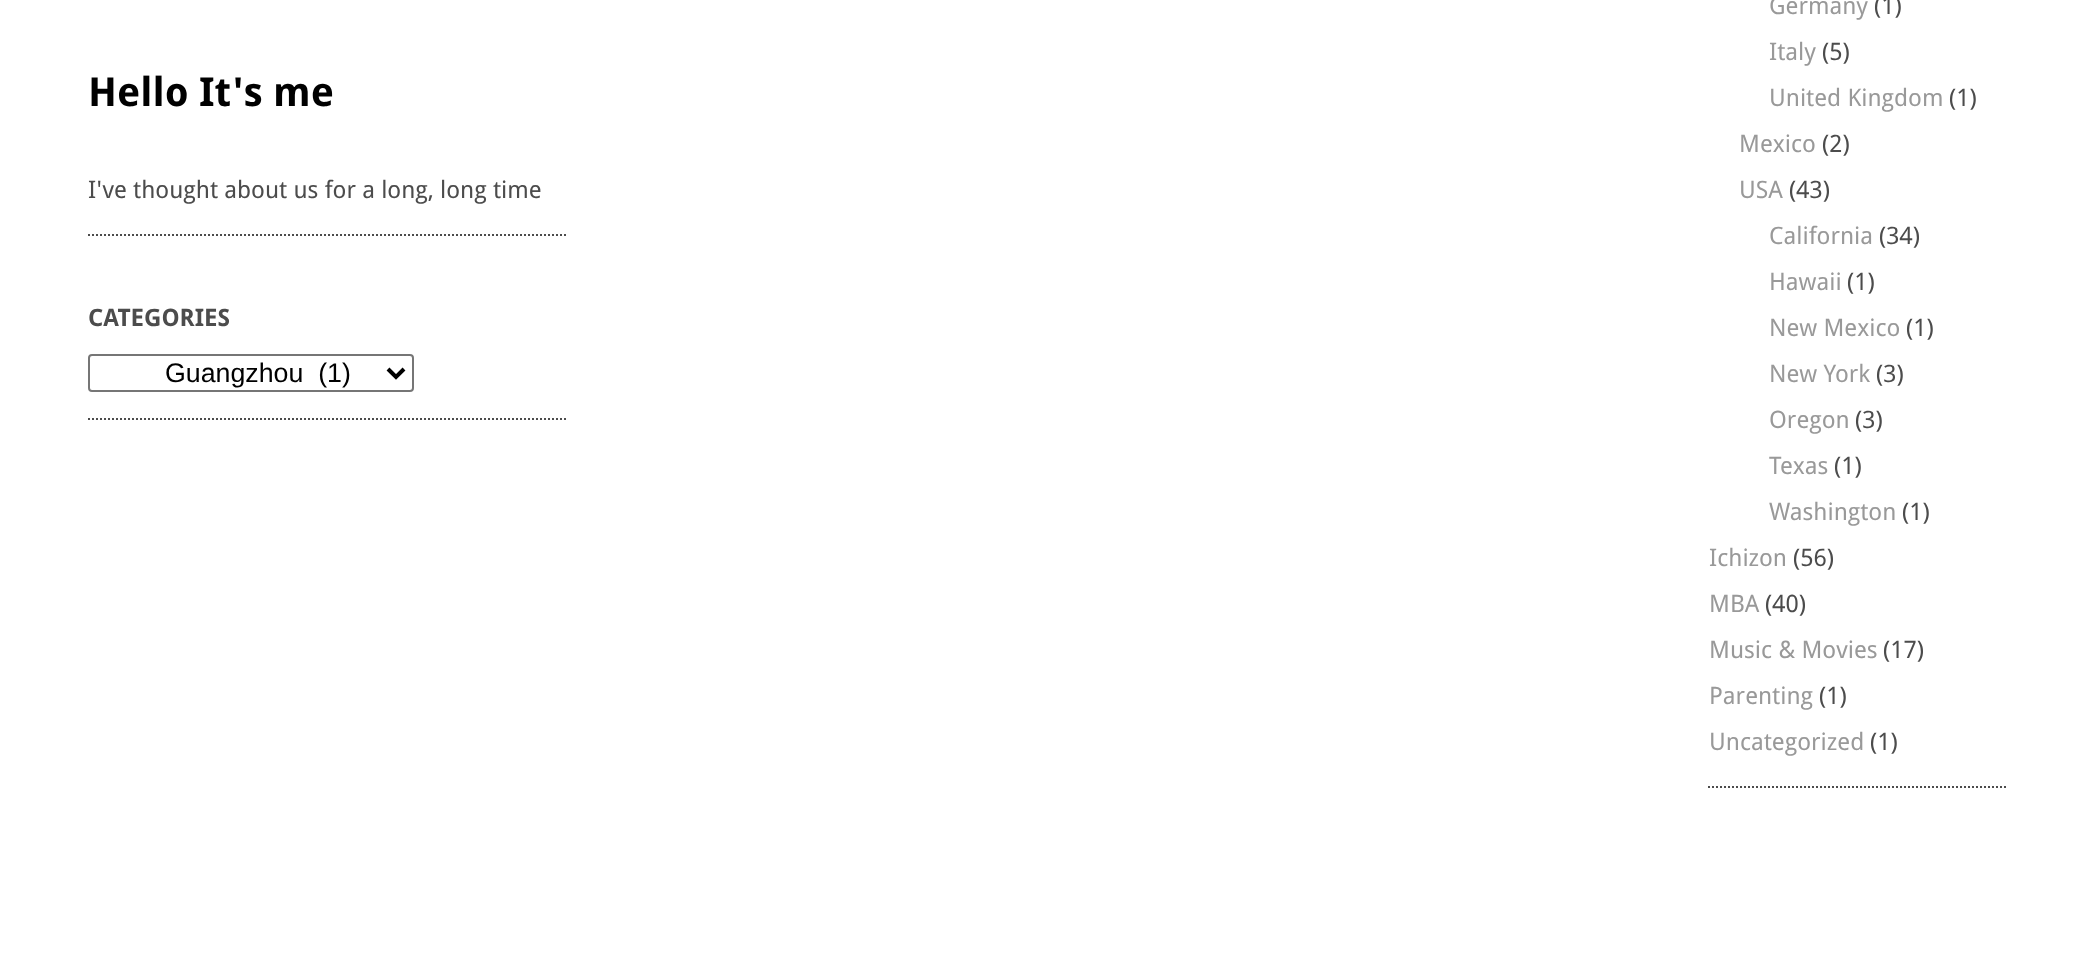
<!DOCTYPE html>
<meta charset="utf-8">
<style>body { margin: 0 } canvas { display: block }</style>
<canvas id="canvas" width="2095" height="953"></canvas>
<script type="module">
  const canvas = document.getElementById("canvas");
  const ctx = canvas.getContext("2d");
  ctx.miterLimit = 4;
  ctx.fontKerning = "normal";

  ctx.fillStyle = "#ffffff";
  ctx.fillRect(0, 0, 2095, 953);
  ctx.font = "bold 40px Droid Sans";
  ctx.fillStyle = "#000000";
  ctx.fillText("Hello It's me", 88, 106);
  ctx.beginPath();
  ctx.moveTo(88, 235);
  ctx.lineTo(568, 235);
  ctx.strokeStyle = "#4c4c4c";
  ctx.lineWidth = 2;
  ctx.setLineDash([2, 2]);
  ctx.stroke();
  ctx.font = "24px Droid Sans";
  ctx.fillStyle = "#4c4c4c";
  ctx.fillText("I've thought about us for a long, long time", 88, 198);
  ctx.beginPath();
  ctx.moveTo(88, 419);
  ctx.lineTo(568, 419);
  ctx.stroke();
  ctx.font = "bold 24px Droid Sans";
  ctx.fillText("CATEGORIES", 88, 326);
  ctx.beginPath();
  ctx.roundRect(89, 355, 324, 36, 3);
  ctx.strokeStyle = "#767676";
  ctx.setLineDash([]);
  ctx.stroke();
  ctx.beginPath();
  ctx.moveTo(388, 369);
  ctx.lineTo(396, 377);
  ctx.lineTo(404, 369);
  ctx.strokeStyle = "#000000";
  ctx.lineWidth = 4;
  ctx.stroke();
  ctx.font = "26.75px Liberation Sans";
  ctx.fillStyle = "#000000";
  ctx.fillText("Guangzhou  (1)", 165, 382);
  ctx.beginPath();
  ctx.moveTo(1708, 787);
  ctx.lineTo(2008, 787);
  ctx.strokeStyle = "#4c4c4c";
  ctx.lineWidth = 2;
  ctx.setLineDash([2, 2]);
  ctx.stroke();
  ctx.font = "24px Droid Sans";
  ctx.fillStyle = "#999999";
  ctx.fillText("Germany", 1769, 14);
  ctx.fillStyle = "#4c4c4c";
  ctx.fillText("(1)", 1874, 14);
  ctx.fillStyle = "#999999";
  ctx.fillText("Italy", 1769, 60);
  ctx.fillStyle = "#4c4c4c";
  ctx.fillText("(5)", 1822, 60);
  ctx.fillStyle = "#999999";
  ctx.fillText("United Kingdom", 1769, 106);
  ctx.fillStyle = "#4c4c4c";
  ctx.fillText("(1)", 1949, 106);
  ctx.fillStyle = "#999999";
  ctx.fillText("Mexico", 1739, 152);
  ctx.fillStyle = "#4c4c4c";
  ctx.fillText("(2)", 1822, 152);
  ctx.fillStyle = "#999999";
  ctx.fillText("USA", 1739, 198);
  ctx.fillStyle = "#4c4c4c";
  ctx.fillText("(43)", 1789, 198);
  ctx.fillStyle = "#999999";
  ctx.fillText("California", 1769, 244);
  ctx.fillStyle = "#4c4c4c";
  ctx.fillText("(34)", 1879, 244);
  ctx.fillStyle = "#999999";
  ctx.fillText("Hawaii", 1769, 290);
  ctx.fillStyle = "#4c4c4c";
  ctx.fillText("(1)", 1847, 290);
  ctx.fillStyle = "#999999";
  ctx.fillText("New Mexico", 1769, 336);
  ctx.fillStyle = "#4c4c4c";
  ctx.fillText("(1)", 1906, 336);
  ctx.fillStyle = "#999999";
  ctx.fillText("New York", 1769, 382);
  ctx.fillStyle = "#4c4c4c";
  ctx.fillText("(3)", 1876, 382);
  ctx.fillStyle = "#999999";
  ctx.fillText("Oregon", 1769, 428);
  ctx.fillStyle = "#4c4c4c";
  ctx.fillText("(3)", 1855, 428);
  ctx.fillStyle = "#999999";
  ctx.fillText("Texas", 1769, 474);
  ctx.fillStyle = "#4c4c4c";
  ctx.fillText("(1)", 1834, 474);
  ctx.fillStyle = "#999999";
  ctx.fillText("Washington", 1769, 520);
  ctx.fillStyle = "#4c4c4c";
  ctx.fillText("(1)", 1902, 520);
  ctx.fillStyle = "#999999";
  ctx.fillText("Ichizon", 1709, 566);
  ctx.fillStyle = "#4c4c4c";
  ctx.fillText("(56)", 1793, 566);
  ctx.fillStyle = "#999999";
  ctx.fillText("MBA", 1709, 612);
  ctx.fillStyle = "#4c4c4c";
  ctx.fillText("(40)", 1765, 612);
  ctx.fillStyle = "#999999";
  ctx.fillText("Music & Movies", 1709, 658);
  ctx.fillStyle = "#4c4c4c";
  ctx.fillText("(17)", 1883, 658);
  ctx.fillStyle = "#999999";
  ctx.fillText("Parenting", 1709, 704);
  ctx.fillStyle = "#4c4c4c";
  ctx.fillText("(1)", 1819, 704);
  ctx.fillStyle = "#999999";
  ctx.fillText("Uncategorized", 1709, 750);
  ctx.fillStyle = "#4c4c4c";
  ctx.fillText("(1)", 1870, 750);
</script>
